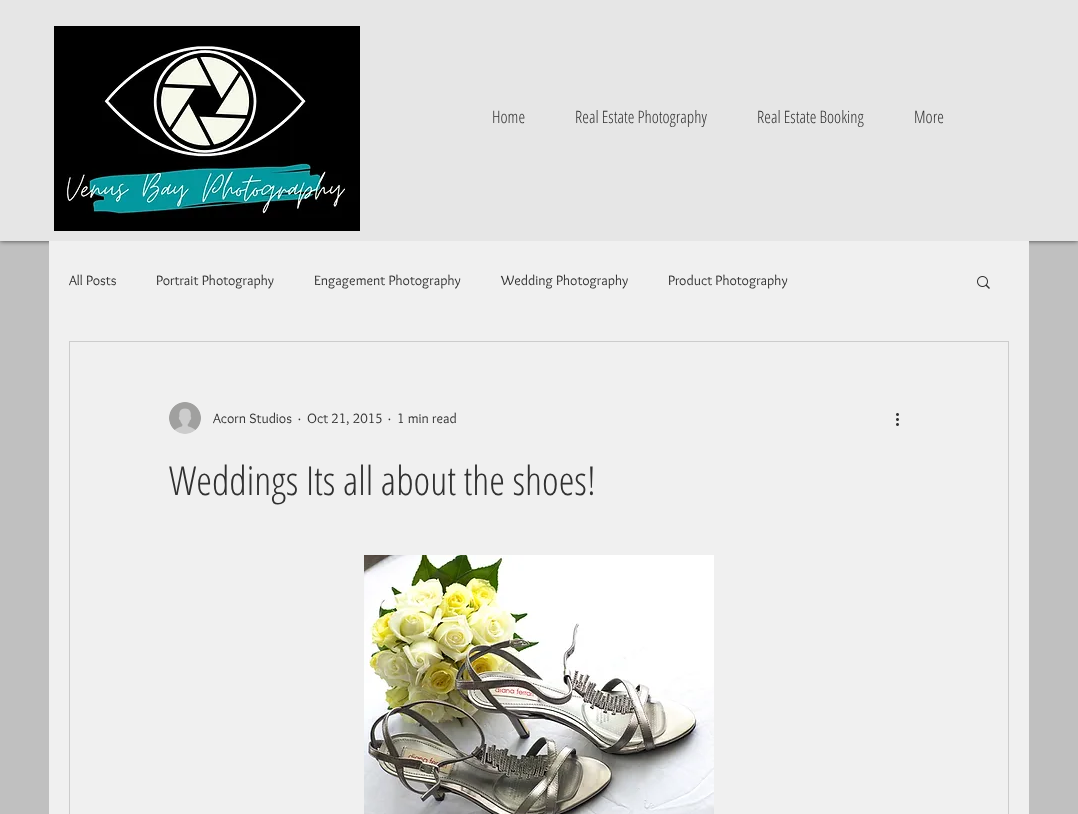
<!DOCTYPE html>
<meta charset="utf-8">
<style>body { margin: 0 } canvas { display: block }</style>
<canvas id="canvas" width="1078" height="814"></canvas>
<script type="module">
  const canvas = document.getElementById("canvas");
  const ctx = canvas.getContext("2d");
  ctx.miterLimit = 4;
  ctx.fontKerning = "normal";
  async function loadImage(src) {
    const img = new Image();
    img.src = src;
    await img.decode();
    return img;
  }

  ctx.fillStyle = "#c0c0c0";
  ctx.fillRect(0, 0, 1078, 814);
  ctx.fillStyle = "rgba(0, 0, 0, 0.7)";
  ctx.filter = "blur(2.5px)";
  ctx.beginPath();
  ctx.rect(0, 0, 1078, 241);
  ctx.fill();
  ctx.filter = "none";
  ctx.fillStyle = "#e6e6e6";
  ctx.fillRect(0, 0, 1078, 241);
  ctx.drawImage(await loadImage("img1.png"), 54, 26, 306, 205);
  ctx.font = "300 17px Open Sans Condensed";
  ctx.fillStyle = "#303030";
  ctx.fillText("Home", 492, 123);
  ctx.fillText("Real Estate Photography", 575, 123);
  ctx.fillText("Real Estate Booking", 757, 123);
  ctx.fillText("More", 914, 123);
  ctx.fillStyle = "#f0f0f0";
  ctx.fillRect(49, 241, 980, 573);
  ctx.font = "14px Overlock";
  ctx.fillStyle = "#303030";
  ctx.fillText("All Posts", 69, 285);
  ctx.fillText("Portrait Photography", 156, 285);
  ctx.fillText("Engagement Photography", 314, 285);
  ctx.fillText("Wedding Photography", 501, 285);
  ctx.fillText("Product Photography", 668, 285);
  ctx.drawImage(await loadImage("img2.png"), 977, 276, 13, 13);
  ctx.strokeStyle = "#cccccc";
  ctx.strokeRect(69.5, 341.5, 939, 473);
  ctx.drawImage(await loadImage("img3.png"), 169, 402, 32, 32);
  ctx.fillText("Acorn Studios", 213, 423);
  ctx.fillText("·", 298, 423);
  ctx.fillText("Oct 21, 2015", 307, 423);
  ctx.fillText("·", 388, 423);
  ctx.fillText("1 min read", 397, 423);
  ctx.drawImage(await loadImage("img4.png"), 896, 413, 3, 13);
  ctx.font = "300 40px Open Sans Condensed";
  ctx.fillText("Weddings Its all about the shoes!", 169, 495);
  ctx.drawImage(await loadImage("img5.png"), 364, 555, 350, 259);
</script>
